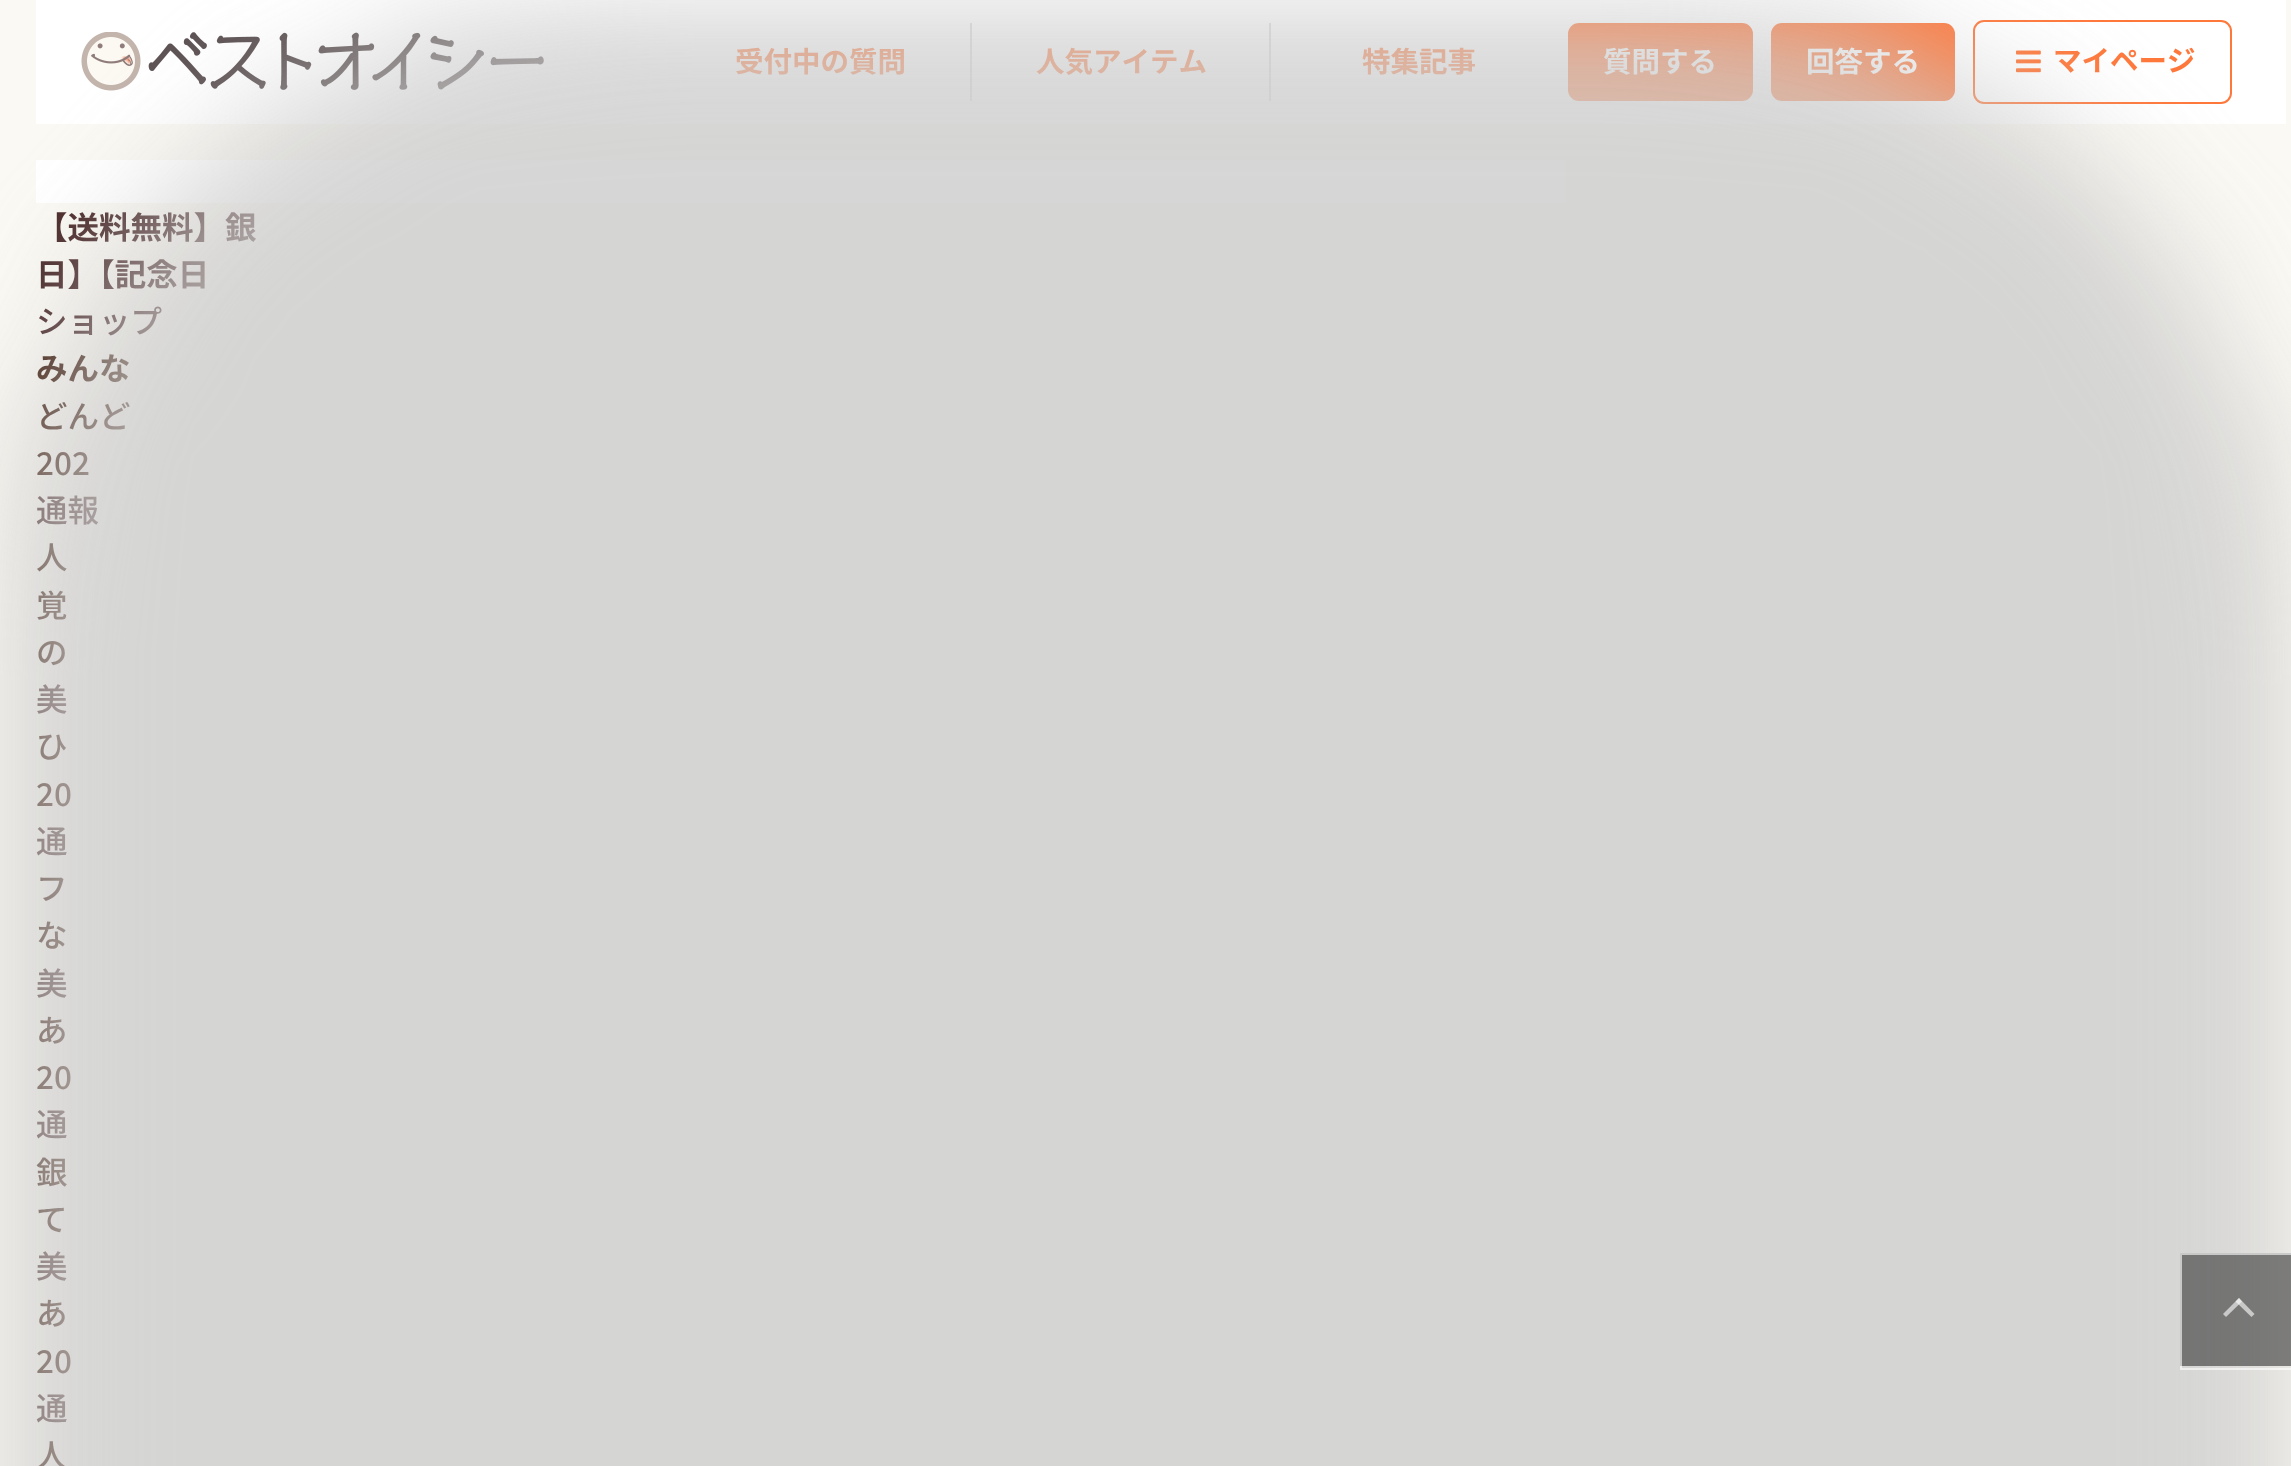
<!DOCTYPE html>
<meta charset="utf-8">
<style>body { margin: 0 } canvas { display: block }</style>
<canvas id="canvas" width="2291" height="1466"></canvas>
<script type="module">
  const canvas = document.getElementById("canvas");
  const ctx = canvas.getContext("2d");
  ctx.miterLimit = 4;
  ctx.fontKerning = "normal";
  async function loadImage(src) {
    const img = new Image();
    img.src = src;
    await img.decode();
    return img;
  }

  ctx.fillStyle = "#fbf9f3";
  ctx.fillRect(0, 0, 2291, 1466);
  ctx.fillStyle = "#ffffff";
  ctx.fillRect(36, 0, 2250, 124);
  ctx.drawImage(await loadImage("img1.png"), 81, 32, 463, 59);
  ctx.font = "bold 28.5px Noto Sans JP";
  ctx.fillStyle = "#ff783b";
  ctx.fillText("受付中の質問", 735, 72);
  ctx.fillStyle = "#dddddd";
  ctx.fillRect(970, 23, 2, 78);
  ctx.fillStyle = "#ff783b";
  ctx.fillText("人気アイテム", 1036, 72);
  ctx.fillStyle = "#dddddd";
  ctx.fillRect(1269, 23, 2, 78);
  ctx.fillStyle = "#ff783b";
  ctx.fillText("特集記事", 1362, 72);
  ctx.beginPath();
  ctx.roundRect(1568, 23, 185, 78, 11);
  ctx.fill();
  ctx.fillStyle = "#ffffff";
  ctx.fillText("質問する", 1603, 72);
  ctx.fillStyle = "#ff783b";
  ctx.beginPath();
  ctx.roundRect(1771, 23, 184, 78, 11);
  ctx.fill();
  ctx.fillStyle = "#ffffff";
  ctx.fillText("回答する", 1806, 72);
  ctx.beginPath();
  ctx.roundRect(1974, 21, 257, 82, 10);
  ctx.strokeStyle = "#ff783b";
  ctx.lineWidth = 2;
  ctx.stroke();
  ctx.drawImage(await loadImage("img2.png"), 2016, 50, 25, 23);
  ctx.fillStyle = "#ff783b";
  ctx.fillText("マイページ", 2053, 71);
  ctx.fillStyle = "#ffffff";
  ctx.fillRect(36, 160, 1530, 43);
  ctx.font = "bold 31.5px Noto Sans JP";
  ctx.fillStyle = "#462525";
  ctx.fillText("【送料無料】銀", 36, 239);
  ctx.fillText("日】【記念日", 36, 286);
  ctx.font = "500 31.5px Noto Sans JP";
  ctx.fillText("ショップ", 36, 333);
  ctx.font = "bold 31.5px Noto Sans JP";
  ctx.fillStyle = "#341000";
  ctx.fillText("みんな", 36, 380);
  ctx.font = "500 31.5px Noto Sans JP";
  ctx.fillText("どんど", 36, 428);
  ctx.fillText("202", 36, 475);
  ctx.fillStyle = "#462525";
  ctx.fillText("通報", 36, 522);
  ctx.fillStyle = "#341000";
  ctx.fillText("人", 36, 569);
  ctx.fillText("覚", 36, 617);
  ctx.fillText("の", 36, 664);
  ctx.fillStyle = "#462525";
  ctx.fillText("美", 36, 711);
  ctx.fillStyle = "#341000";
  ctx.fillText("ひ", 36, 758);
  ctx.fillText("20", 36, 806);
  ctx.fillStyle = "#462525";
  ctx.fillText("通", 36, 853);
  ctx.fillStyle = "#341000";
  ctx.fillText("フ", 36, 900);
  ctx.fillText("な", 36, 947);
  ctx.fillStyle = "#462525";
  ctx.fillText("美", 36, 995);
  ctx.fillStyle = "#341000";
  ctx.fillText("あ", 36, 1042);
  ctx.fillText("20", 36, 1089);
  ctx.fillStyle = "#462525";
  ctx.fillText("通", 36, 1136);
  ctx.fillStyle = "#341000";
  ctx.fillText("銀", 36, 1184);
  ctx.fillText("て", 36, 1231);
  ctx.fillStyle = "#462525";
  ctx.fillText("美", 36, 1278);
  ctx.fillStyle = "#341000";
  ctx.fillText("あ", 36, 1325);
  ctx.fillText("20", 36, 1373);
  ctx.fillStyle = "#462525";
  ctx.fillText("通", 36, 1420);
  ctx.fillStyle = "#341000";
  ctx.fillText("人", 36, 1467);
  ctx.drawImage(await loadImage("img3.png"), 0, 0, 2291, 1466);
  ctx.fillStyle = "rgba(51, 51, 51, 0.6)";
  ctx.fillRect(2180, 1253, 111, 113);
  ctx.strokeStyle = "rgba(255, 255, 255, 0.6)";
  ctx.strokeRect(2181, 1254, 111, 115);
  ctx.fillStyle = "#c9c9c8";
  ctx.beginPath();
  ctx.moveTo(2239, 1298);
  ctx.lineTo(2254.5, 1314);
  ctx.lineTo(2251.5, 1317);
  ctx.lineTo(2235.5, 1301.5);
  ctx.closePath();
  ctx.fill();
  ctx.fillStyle = "rgba(255, 255, 255, 0.6)";
  ctx.beginPath();
  ctx.moveTo(2239, 1298);
  ctx.lineTo(2242, 1301.5);
  ctx.lineTo(2226, 1317);
  ctx.lineTo(2223, 1314);
  ctx.closePath();
  ctx.fill();
</script>
